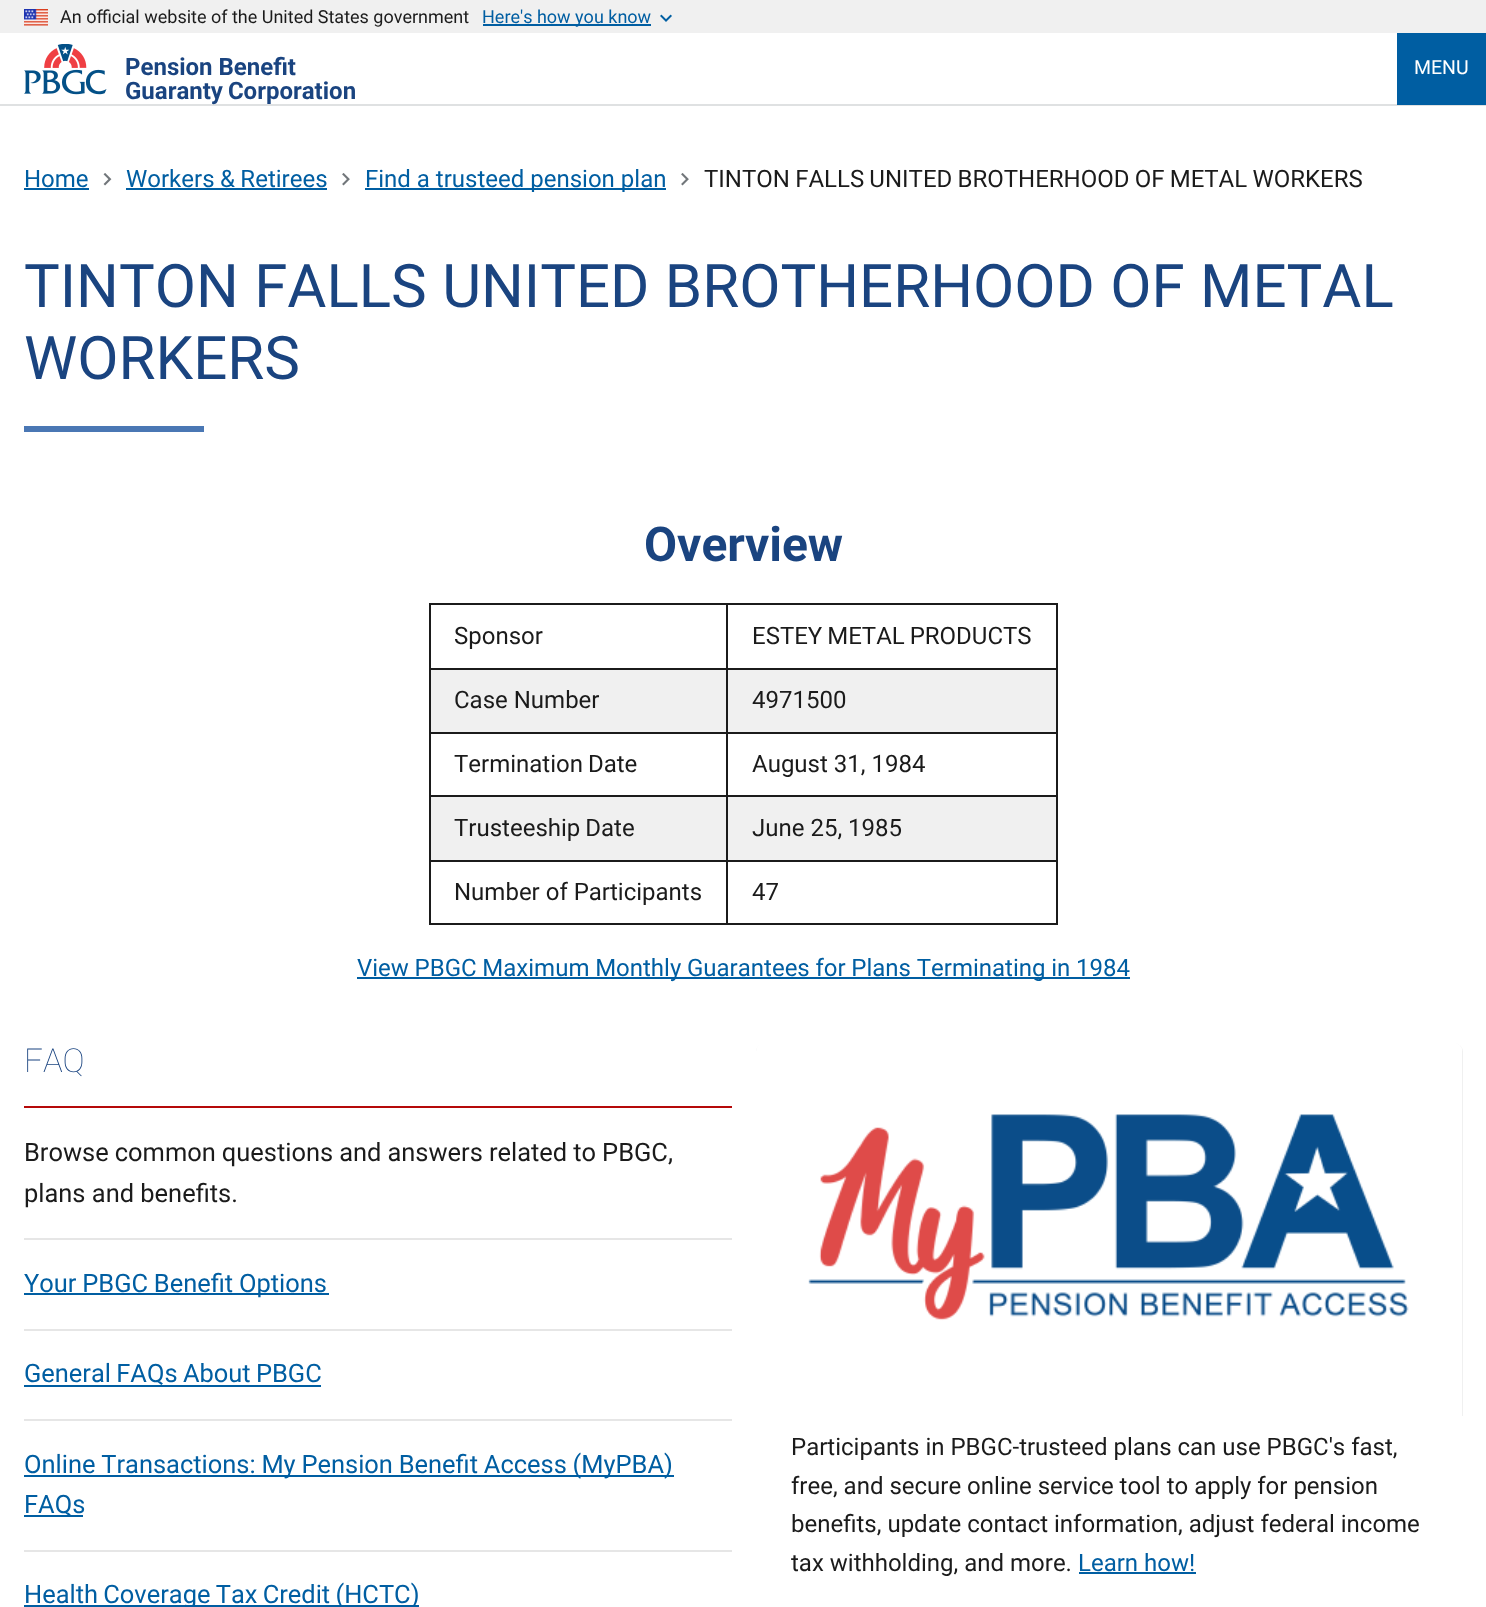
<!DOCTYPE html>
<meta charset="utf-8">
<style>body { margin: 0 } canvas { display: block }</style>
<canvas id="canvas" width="1486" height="1607"></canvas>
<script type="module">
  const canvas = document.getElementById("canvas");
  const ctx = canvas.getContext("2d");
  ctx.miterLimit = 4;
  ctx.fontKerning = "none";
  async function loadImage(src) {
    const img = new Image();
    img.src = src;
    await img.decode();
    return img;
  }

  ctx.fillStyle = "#ffffff";
  ctx.fillRect(0, 0, 1486, 1607);
  ctx.fillStyle = "#f0f0f0";
  ctx.fillRect(0, 0, 1486, 33);
  ctx.drawImage(await loadImage("img1.png"), 24, 9, 24, 17);
  ctx.font = "18px Roboto";
  ctx.fillStyle = "#1b1b1b";
  ctx.fillText("An official website of the United States government", 60, 23);
  ctx.fillStyle = "#005ea2";
  ctx.fillRect(483, 24, 168, 2);
  ctx.fillText("Here's how you know", 482, 23);
  ctx.drawImage(await loadImage("img2.png"), 660, 14, 12, 8);
  ctx.fillStyle = "#dfe1e2";
  ctx.fillRect(0, 104, 1486, 2);
  ctx.drawImage(await loadImage("img3.png"), 24, 44, 83, 51);
  ctx.font = "bold 24px Roboto";
  ctx.fillStyle = "#1a4480";
  ctx.fillText("Pension Benefit", 125, 75);
  ctx.wordSpacing = "-1px";
  ctx.fillText("Guaranty Corporation", 125, 99);
  ctx.fillStyle = "#005ea2";
  ctx.fillRect(1397, 33, 89, 72);
  ctx.wordSpacing = "0px";
  ctx.font = "19.5px Roboto";
  ctx.fillStyle = "#ffffff";
  ctx.fillText("MENU", 1414, 74);
  ctx.font = "24px Roboto";
  ctx.fillStyle = "#005ea2";
  ctx.fillText("Home", 24, 187);
  ctx.fillRect(24, 188, 65, 2);
  ctx.drawImage(await loadImage("img4.png"), 103, 173, 9, 13);
  ctx.wordSpacing = "-0.5px";
  ctx.fillText("Workers & Retirees", 126, 187);
  ctx.fillRect(126, 188, 201, 2);
  ctx.drawImage(await loadImage("img5.png"), 342, 173, 8, 13);
  ctx.fillRect(365, 188, 301, 2);
  ctx.wordSpacing = "0px";
  ctx.fillText("Find a trusteed pension plan", 365, 187);
  ctx.drawImage(await loadImage("img5.png"), 681, 173, 8, 13);
  ctx.wordSpacing = "-0.75px";
  ctx.fillStyle = "#1b1b1b";
  ctx.fillText("TINTON FALLS UNITED BROTHERHOOD OF METAL WORKERS", 704, 187);
  ctx.wordSpacing = "0.5px";
  ctx.font = "60px Roboto";
  ctx.fillStyle = "#1a4480";
  ctx.fillText("TINTON FALLS UNITED BROTHERHOOD OF METAL", 24, 307);
  ctx.wordSpacing = "0px";
  ctx.fillText("WORKERS", 24, 379);
  ctx.fillStyle = "#4a77b4";
  ctx.fillRect(24, 426, 180, 6);
  ctx.font = "bold 48px Roboto";
  ctx.fillStyle = "#1a4480";
  ctx.fillText("Overview", 644, 561);
  ctx.fillStyle = "#1b1b1b";
  ctx.fillRect(726, 603, 332, 2);
  ctx.fillRect(726, 668, 332, 2);
  ctx.fillRect(726, 732, 332, 2);
  ctx.fillRect(726, 795, 332, 2);
  ctx.fillRect(726, 860, 332, 2);
  ctx.fillRect(1056, 860, 2, 64);
  ctx.fillRect(726, 923, 332, 2);
  ctx.fillRect(726, 860, 2, 64);
  ctx.fillRect(429, 860, 299, 2);
  ctx.fillRect(726, 795, 2, 66);
  ctx.fillRect(429, 795, 299, 2);
  ctx.fillRect(726, 732, 2, 65);
  ctx.fillRect(429, 732, 299, 2);
  ctx.fillRect(726, 668, 2, 66);
  ctx.fillRect(429, 668, 299, 2);
  ctx.fillRect(726, 603, 2, 66);
  ctx.fillRect(429, 603, 299, 2);
  ctx.fillRect(429, 923, 299, 2);
  ctx.fillRect(429, 860, 2, 64);
  ctx.fillRect(429, 795, 2, 66);
  ctx.fillRect(429, 732, 2, 65);
  ctx.fillRect(429, 668, 2, 66);
  ctx.fillRect(429, 603, 2, 66);
  ctx.font = "24px Roboto";
  ctx.fillText("Sponsor", 454, 644);
  ctx.fillRect(1056, 795, 2, 66);
  ctx.fillRect(1056, 732, 2, 65);
  ctx.fillRect(1056, 668, 2, 66);
  ctx.fillRect(1056, 603, 2, 66);
  ctx.wordSpacing = "-1px";
  ctx.fillText("ESTEY METAL PRODUCTS", 752, 644);
  ctx.fillStyle = "#f0f0f0";
  ctx.fillRect(431, 670, 295, 62);
  ctx.wordSpacing = "0px";
  ctx.fillStyle = "#1b1b1b";
  ctx.fillText("Case Number", 454, 708);
  ctx.fillStyle = "#f0f0f0";
  ctx.fillRect(728, 670, 328, 62);
  ctx.fillStyle = "#1b1b1b";
  ctx.fillText("4971500", 752, 708);
  ctx.wordSpacing = "-1px";
  ctx.fillText("Termination Date", 454, 772);
  ctx.wordSpacing = "0px";
  ctx.fillText("August 31, 1984", 752, 772);
  ctx.fillStyle = "#f0f0f0";
  ctx.fillRect(431, 797, 295, 63);
  ctx.wordSpacing = "-1px";
  ctx.fillStyle = "#1b1b1b";
  ctx.fillText("Trusteeship Date", 454, 836);
  ctx.fillStyle = "#f0f0f0";
  ctx.fillRect(728, 797, 328, 63);
  ctx.wordSpacing = "0px";
  ctx.fillStyle = "#1b1b1b";
  ctx.fillText("June 25, 1985", 752, 836);
  ctx.fillText("Number of Participants", 454, 900);
  ctx.fillText("47", 752, 900);
  ctx.fillStyle = "#005ea2";
  ctx.fillRect(357, 977, 773, 2);
  ctx.wordSpacing = "-0.25px";
  ctx.fillText("View PBGC Maximum Monthly Guarantees for Plans Terminating in 1984", 357, 976);
  ctx.fillStyle = "#b50909";
  ctx.fillRect(24, 1106, 708, 2);
  ctx.wordSpacing = "0px";
  ctx.font = "100 33px Roboto";
  ctx.fillStyle = "#1a4480";
  ctx.fillText("FAQ", 24, 1072);
  ctx.fillStyle = "#e6e6e6";
  ctx.fillRect(24, 1238, 708, 2);
  ctx.wordSpacing = "-0.25px";
  ctx.font = "25.45px Roboto";
  ctx.fillStyle = "#1b1b1b";
  ctx.fillText("Browse common questions and answers related to PBGC,", 24, 1161);
  ctx.wordSpacing = "0px";
  ctx.fillText("plans and benefits.", 24, 1202);
  ctx.fillStyle = "#e6e6e6";
  ctx.fillRect(24, 1329, 708, 2);
  ctx.fillStyle = "#005ea2";
  ctx.fillRect(24, 1293, 305, 2);
  ctx.wordSpacing = "-0.5px";
  ctx.fillText("Your PBGC Benefit Options", 24, 1292);
  ctx.fillStyle = "#e6e6e6";
  ctx.fillRect(24, 1419, 708, 2);
  ctx.fillStyle = "#005ea2";
  ctx.fillRect(24, 1385, 297, 2);
  ctx.wordSpacing = "-1px";
  ctx.fillText("General FAQs About PBGC", 24, 1382);
  ctx.fillStyle = "#e6e6e6";
  ctx.fillRect(24, 1550, 708, 2);
  ctx.fillStyle = "#005ea2";
  ctx.fillRect(24, 1475, 650, 2);
  ctx.wordSpacing = "-0.5px";
  ctx.fillText("Online Transactions: My Pension Benefit Access (MyPBA)", 24, 1473);
  ctx.fillRect(24, 1515, 59, 2);
  ctx.wordSpacing = "0px";
  ctx.fillText("FAQs", 24, 1513);
  ctx.fillRect(24, 1605, 395, 2);
  ctx.wordSpacing = "-1px";
  ctx.fillText("Health Coverage Tax Credit (HCTC)", 24, 1603);
  ctx.fillStyle = "#f0f0f0";
  ctx.beginPath();
  ctx.roundRect(756, 1043, 707, 373, [9, 9, 0, 0]);
  ctx.fill();
  ctx.drawImage(await loadImage("img6.png"), 756, 1043, 706, 373);
  ctx.wordSpacing = "0px";
  ctx.font = "24px Roboto";
  ctx.fillStyle = "#1b1b1b";
  ctx.fillText("Participants in PBGC-trusteed plans can use PBGC's fast,", 791, 1455);
  ctx.fillText("free, and secure online service tool to apply for pension", 791, 1494);
  ctx.fillText("benefits, update contact information, adjust federal income", 791, 1532);
  ctx.fillText("tax withholding, and more.", 791, 1571);
  ctx.fillStyle = "#005ea2";
  ctx.fillText("Learn how!", 1078, 1571);
  ctx.fillRect(1079, 1572, 117, 2);
</script>
